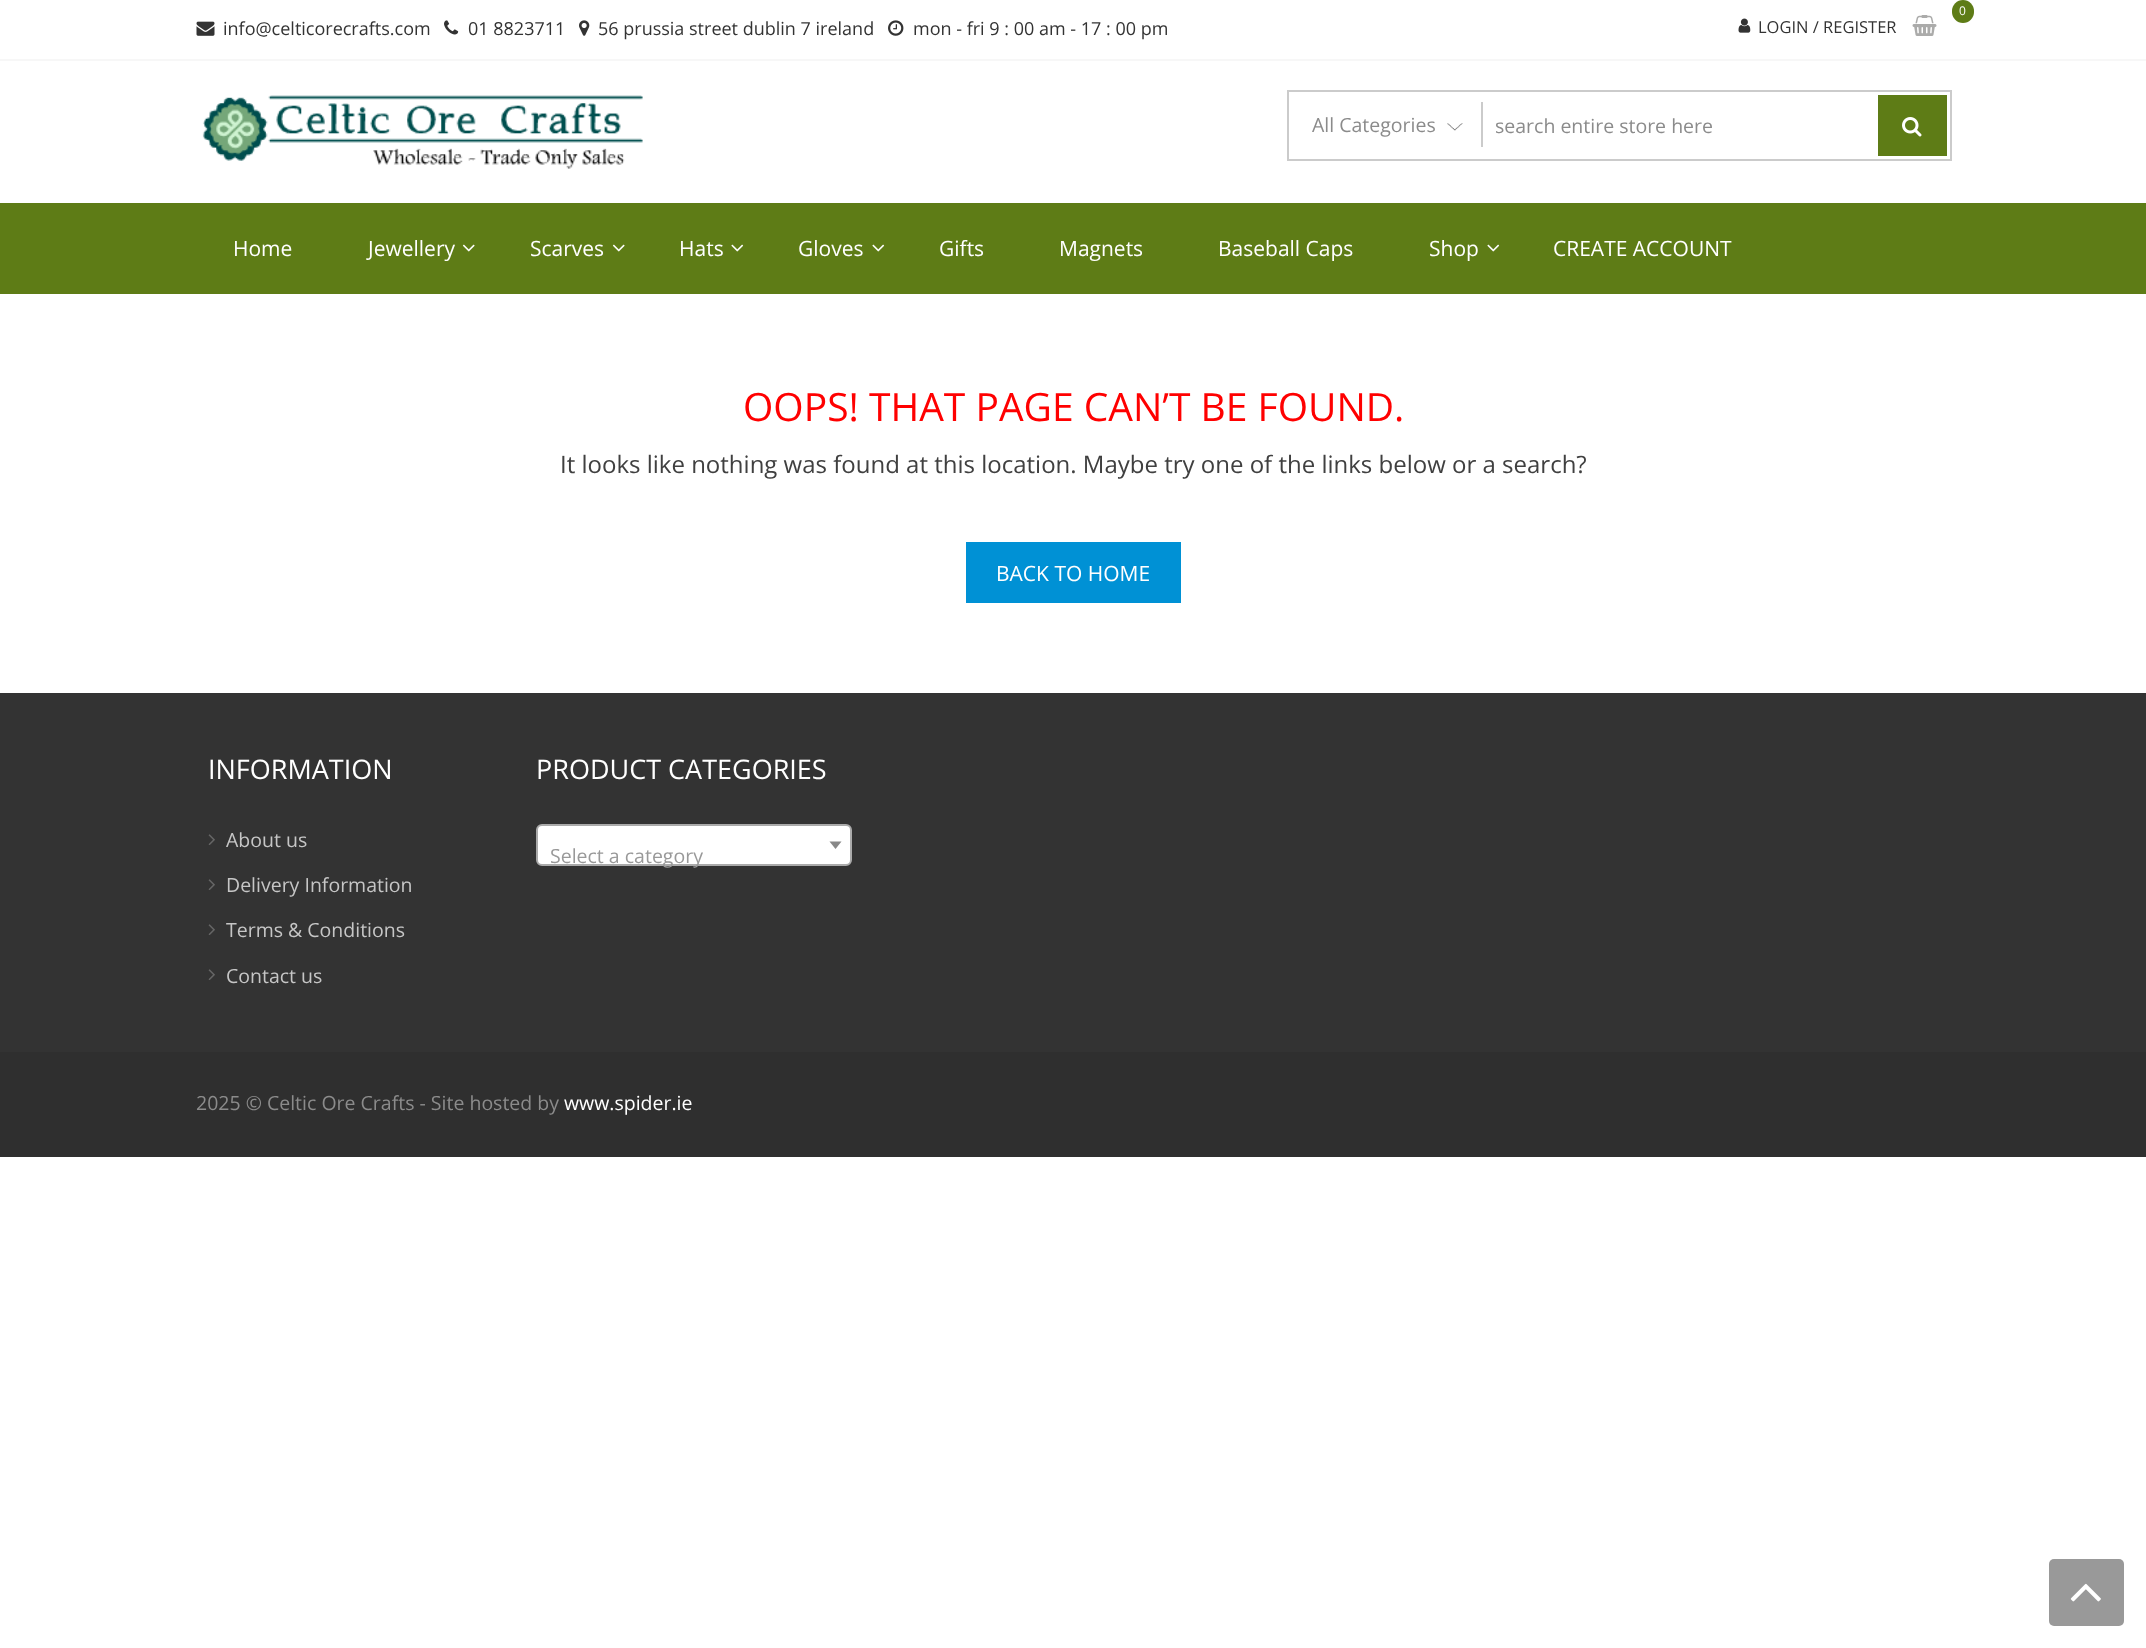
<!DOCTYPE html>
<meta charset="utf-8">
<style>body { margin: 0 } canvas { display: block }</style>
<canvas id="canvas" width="2146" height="1648"></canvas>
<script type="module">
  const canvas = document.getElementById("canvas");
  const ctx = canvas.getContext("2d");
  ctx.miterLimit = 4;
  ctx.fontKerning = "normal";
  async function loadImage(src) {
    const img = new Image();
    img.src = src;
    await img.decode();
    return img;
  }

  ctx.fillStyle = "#ffffff";
  ctx.fillRect(0, 0, 2146, 1648);
  ctx.fillStyle = "#f7f7f7";
  ctx.fillRect(0, 59, 2146, 2);
  ctx.drawImage(await loadImage("img1.png"), 196, 21, 19, 15);
  ctx.font = "18px Open Sans";
  ctx.fillStyle = "#333333";
  ctx.fillText("info@celticorecrafts.com", 223, 35);
  ctx.drawImage(await loadImage("img2.png"), 444, 20, 15, 15);
  ctx.fillText("01 8823711", 468, 35);
  ctx.drawImage(await loadImage("img3.png"), 579, 20, 11, 16);
  ctx.fillText("56 prussia street dublin 7 ireland", 598, 35);
  ctx.drawImage(await loadImage("img4.png"), 888, 20, 16, 16);
  ctx.fillText("mon - fri 9 : 00 am - 17 : 00 pm", 913, 35);
  ctx.fillStyle = "#5e7c16";
  ctx.beginPath();
  ctx.roundRect(1952, 0, 22, 23, 11);
  ctx.fill();
  ctx.font = "12px Open Sans";
  ctx.fillStyle = "#ffffff";
  ctx.fillText("0", 1959, 15);
  ctx.drawImage(await loadImage("img5.png"), 1912, 15, 25, 21);
  ctx.drawImage(await loadImage("img6.png"), 1738, 18, 13, 15);
  ctx.font = "16.5px Open Sans";
  ctx.fillStyle = "#333333";
  ctx.fillText("LOGIN / REGISTER", 1758, 33);
  ctx.drawImage(await loadImage("img7.png"), 202, 95, 441, 74);
  ctx.strokeStyle = "#cbcbcb";
  ctx.lineWidth = 2;
  ctx.strokeRect(1288, 91, 663, 69);
  ctx.drawImage(await loadImage("img8.png"), 1447, 123, 16, 8);
  ctx.font = "19.5px Open Sans";
  ctx.fillStyle = "#8b8b8b";
  ctx.fillText("All Categories", 1312, 132);
  ctx.fillStyle = "#cbcbcb";
  ctx.fillRect(1481, 102, 2, 45);
  ctx.save();
  ctx.beginPath();
  ctx.rect(1496, 113, 439, 27);
  ctx.clip();
  ctx.fillStyle = "#8b8b8b";
  ctx.fillText("search entire store here", 1495, 133);
  ctx.restore();
  ctx.fillStyle = "#5e7c16";
  ctx.fillRect(1878, 95, 69, 61);
  ctx.drawImage(await loadImage("img9.png"), 1902, 117, 20, 20);
  ctx.fillRect(0, 203, 2146, 91);
  ctx.font = "21px Open Sans";
  ctx.fillStyle = "#ffffff";
  ctx.fillText("Home", 233, 256);
  ctx.fillText("Jewellery", 368, 256);
  ctx.drawImage(await loadImage("img10.png"), 462, 244, 13, 8);
  ctx.fillText("Scarves", 530, 256);
  ctx.drawImage(await loadImage("img10.png"), 612, 244, 13, 8);
  ctx.fillText("Hats", 679, 256);
  ctx.drawImage(await loadImage("img11.png"), 731, 244, 13, 8);
  ctx.fillText("Gloves", 798, 256);
  ctx.drawImage(await loadImage("img11.png"), 872, 244, 13, 8);
  ctx.fillText("Gifts", 939, 256);
  ctx.fillText("Magnets", 1059, 256);
  ctx.fillText("Baseball Caps", 1218, 256);
  ctx.fillText("Shop", 1429, 256);
  ctx.drawImage(await loadImage("img11.png"), 1487, 244, 13, 8);
  ctx.fillText("CREATE ACCOUNT", 1553, 256);
  ctx.font = "39px Open Sans";
  ctx.fillStyle = "#ff0000";
  ctx.fillText("OOPS! THAT PAGE CAN’T BE FOUND.", 743, 421);
  ctx.font = "24px Open Sans";
  ctx.fillStyle = "#404040";
  ctx.fillText("It looks like nothing was found at this location. Maybe try one of the links below or a search?", 560, 473);
  ctx.fillStyle = "#0091d5";
  ctx.fillRect(966, 542, 215, 61);
  ctx.font = "21px Open Sans";
  ctx.fillStyle = "#ffffff";
  ctx.fillText("BACK TO HOME", 996, 581);
  ctx.fillStyle = "#333333";
  ctx.fillRect(0, 693, 2146, 359);
  ctx.font = "27px Open Sans";
  ctx.fillStyle = "#ffffff";
  ctx.fillText("INFORMATION", 208, 779);
  ctx.drawImage(await loadImage("img12.png"), 208, 834, 7, 11);
  ctx.font = "19.5px Open Sans";
  ctx.fillStyle = "#c6c6c6";
  ctx.fillText("About us", 226, 847);
  ctx.drawImage(await loadImage("img12.png"), 208, 879, 7, 11);
  ctx.fillText("Delivery Information", 226, 892);
  ctx.drawImage(await loadImage("img12.png"), 208, 924, 7, 11);
  ctx.fillText("Terms & Conditions", 226, 937);
  ctx.drawImage(await loadImage("img12.png"), 208, 969, 7, 11);
  ctx.fillText("Contact us", 226, 983);
  ctx.font = "27px Open Sans";
  ctx.fillStyle = "#ffffff";
  ctx.fillText("PRODUCT CATEGORIES", 536, 779);
  ctx.beginPath();
  ctx.roundRect(537, 825, 314, 40, 5);
  ctx.fill();
  ctx.strokeStyle = "#aaaaaa";
  ctx.stroke();
  ctx.fillStyle = "#888888";
  ctx.beginPath();
  ctx.moveTo(829.5, 841.5);
  ctx.lineTo(841.5, 841.5);
  ctx.lineTo(835.5, 849);
  ctx.closePath();
  ctx.fill();
  ctx.font = "19.5px Open Sans";
  ctx.fillStyle = "#999999";
  ctx.fillText("Select a category", 550, 863);
  ctx.fillStyle = "#2f2f2f";
  ctx.fillRect(0, 1052, 2146, 105);
  ctx.fillStyle = "#8b8b8b";
  ctx.fillText("2025 © Celtic Ore Crafts - Site hosted by", 196, 1110);
  ctx.fillStyle = "#ffffff";
  ctx.fillText("www.spider.ie", 564, 1110);
  ctx.fillStyle = "#999999";
  ctx.beginPath();
  ctx.roundRect(2049, 1559, 75, 67, 5);
  ctx.fill();
  ctx.drawImage(await loadImage("img13.png"), 2070, 1583, 31, 19);
</script>
